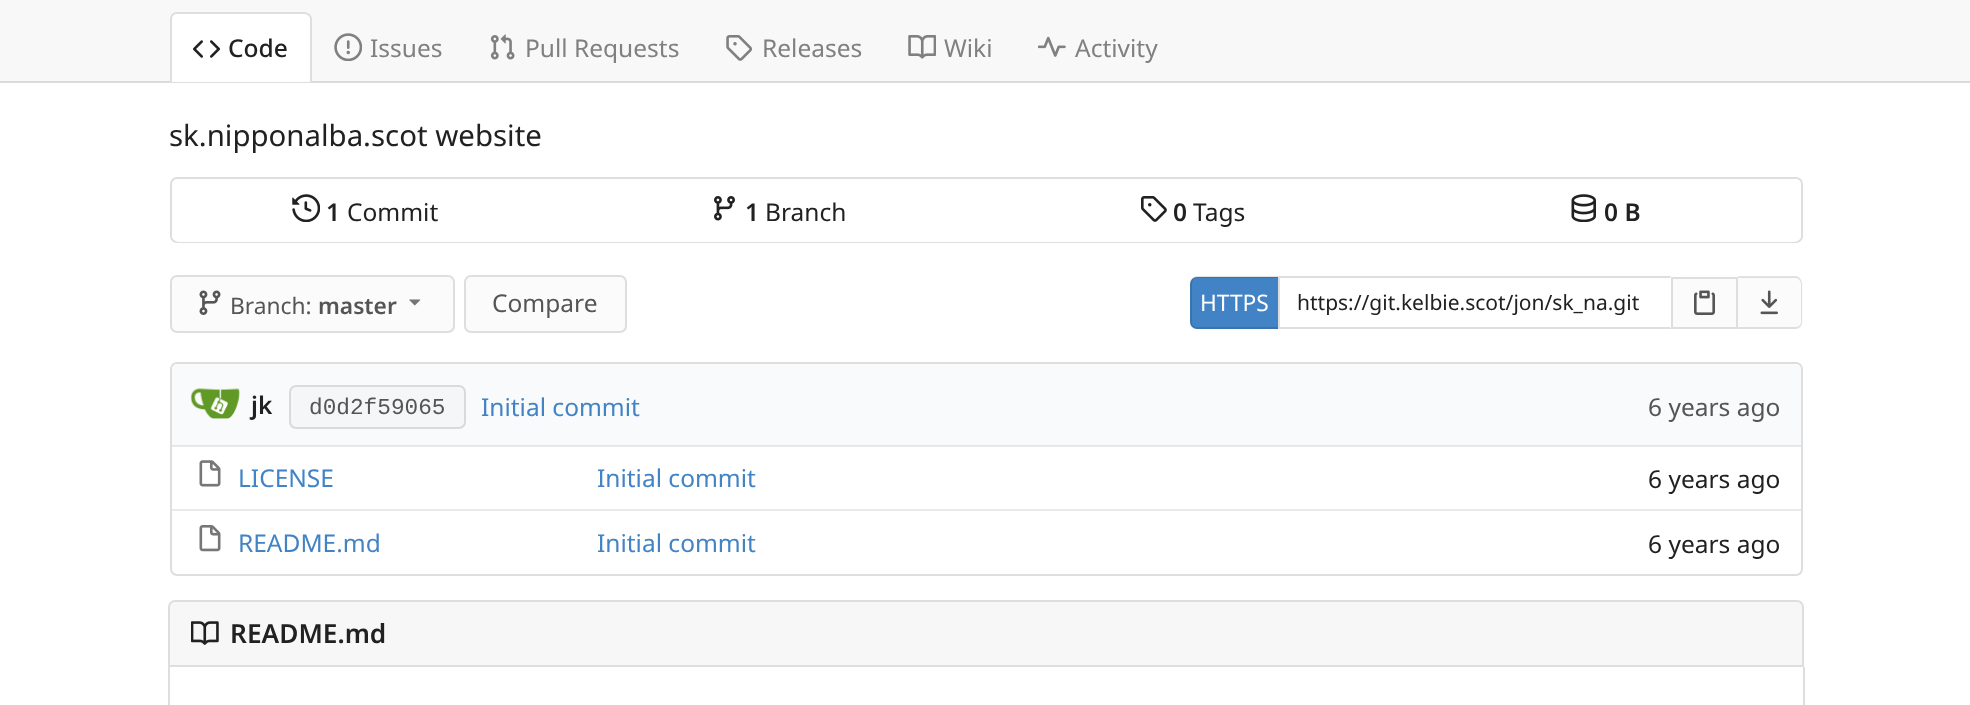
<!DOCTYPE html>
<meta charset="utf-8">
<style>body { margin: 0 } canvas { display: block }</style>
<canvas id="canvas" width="1970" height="705"></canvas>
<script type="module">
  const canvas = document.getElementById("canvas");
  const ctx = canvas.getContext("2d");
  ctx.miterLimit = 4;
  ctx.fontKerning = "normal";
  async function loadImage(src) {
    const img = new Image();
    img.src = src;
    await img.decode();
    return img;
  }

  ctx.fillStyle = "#ffffff";
  ctx.fillRect(0, 0, 1970, 705);
  ctx.fillStyle = "#e9e9e9";
  ctx.fillRect(172, 446, 1629, 1);
  ctx.fillStyle = "#dedede";
  ctx.fillRect(0, 82, 1970, 1);
  ctx.fillStyle = "#f8f8f8";
  ctx.fillRect(0, 0, 1970, 81);
  ctx.fillStyle = "#d8d8d8";
  ctx.fillRect(0, 81, 1970, 1);
  ctx.fillStyle = "#ffffff";
  ctx.beginPath();
  ctx.roundRect(170, 12, 142, 70, [7, 7, 0, 0]);
  ctx.fill();
  ctx.fillStyle = "#dedede";
  ctx.beginPath();
  ctx.moveTo(177, 12);
  ctx.lineTo(304, 12);
  ctx.bezierCurveTo(308, 12, 312, 15, 312, 19);
  ctx.lineTo(312, 82);
  ctx.lineTo(170, 82);
  ctx.lineTo(170, 19);
  ctx.bezierCurveTo(170, 15, 173, 12, 177, 12);
  ctx.closePath();
  ctx.moveTo(177, 14);
  ctx.lineTo(304, 14);
  ctx.bezierCurveTo(307, 14, 310, 16, 310, 19);
  ctx.lineTo(310, 82);
  ctx.lineTo(172, 82);
  ctx.lineTo(172, 19);
  ctx.bezierCurveTo(172, 16, 174, 14, 177, 14);
  ctx.closePath();
  ctx.fill("evenodd");
  ctx.drawImage(await loadImage("img1.png"), 193, 40, 27, 18);
  ctx.font = "500 24.5px Noto Sans";
  ctx.fillStyle = "#212121";
  ctx.fillText("Code", 228, 57);
  ctx.drawImage(await loadImage("img2.png"), 334, 33, 28, 28);
  ctx.font = "24.5px Noto Sans";
  ctx.fillStyle = "#808080";
  ctx.fillText("Issues", 370, 57);
  ctx.drawImage(await loadImage("img3.png"), 490, 34, 25, 26);
  ctx.fillText("Pull Requests", 525, 57);
  ctx.drawImage(await loadImage("img4.png"), 726, 35, 26, 26);
  ctx.fillText("Releases", 762, 57);
  ctx.drawImage(await loadImage("img5.png"), 908, 35, 28, 24);
  ctx.fillText("Wiki", 944, 57);
  ctx.drawImage(await loadImage("img6.png"), 1038, 36, 28, 21);
  ctx.fillText("Activity", 1075, 57);
  ctx.font = "29.4px Noto Sans";
  ctx.fillStyle = "#212121";
  ctx.fillText("sk.nipponalba.scot website", 169, 146);
  ctx.beginPath();
  ctx.roundRect(171, 178, 1631, 64, 6);
  ctx.strokeStyle = "#dedede";
  ctx.lineWidth = 2;
  ctx.stroke();
  ctx.fillStyle = "#ffffff";
  ctx.beginPath();
  ctx.roundRect(172, 179, 1629, 63, 7);
  ctx.fill();
  ctx.drawImage(await loadImage("img7.png"), 292, 194, 28, 28);
  ctx.font = "600 24.5px Noto Sans";
  ctx.fillStyle = "#212121";
  ctx.fillText("1", 326, 221);
  ctx.font = "24.5px Noto Sans";
  ctx.fillText("Commit", 347, 221);
  ctx.drawImage(await loadImage("img8.png"), 714, 196, 21, 25);
  ctx.font = "600 24.5px Noto Sans";
  ctx.fillText("1", 745, 221);
  ctx.font = "24.5px Noto Sans";
  ctx.fillText("Branch", 765, 221);
  ctx.drawImage(await loadImage("img9.png"), 1141, 196, 26, 26);
  ctx.font = "600 24.5px Noto Sans";
  ctx.fillText("0", 1173, 221);
  ctx.font = "24.5px Noto Sans";
  ctx.fillText("Tags", 1193, 221);
  ctx.drawImage(await loadImage("img10.png"), 1571, 194, 25, 28);
  ctx.font = "600 24.5px Noto Sans";
  ctx.fillText("0 B", 1604, 221);
  ctx.fillStyle = "#fbfbfb";
  ctx.beginPath();
  ctx.roundRect(171, 276, 283, 56, 6);
  ctx.fill();
  ctx.stroke();
  ctx.drawImage(await loadImage("img11.png"), 199, 290, 22, 25);
  ctx.font = "22.75px Noto Sans";
  ctx.fillStyle = "#555555";
  ctx.fillText("Branch:", 230, 314);
  ctx.font = "600 22.75px Noto Sans";
  ctx.fillText("master", 318, 314);
  ctx.drawImage(await loadImage("img12.png"), 409, 299, 12, 7);
  ctx.fillStyle = "#fbfbfb";
  ctx.beginPath();
  ctx.roundRect(465, 276, 161, 56, 6);
  ctx.fill();
  ctx.stroke();
  ctx.font = "24.5px Noto Sans";
  ctx.fillStyle = "#555555";
  ctx.fillText("Compare", 492, 312);
  ctx.fillStyle = "#4183c4";
  ctx.beginPath();
  ctx.roundRect(1190, 277, 88, 52, [7, 0, 0, 7]);
  ctx.fill();
  ctx.fillStyle = "rgba(0, 0, 0, 0.11)";
  ctx.beginPath();
  ctx.moveTo(1197, 276);
  ctx.lineTo(1278, 276);
  ctx.lineTo(1278, 329);
  ctx.lineTo(1197, 329);
  ctx.bezierCurveTo(1193, 329, 1190, 326, 1190, 322);
  ctx.lineTo(1190, 284);
  ctx.bezierCurveTo(1190, 280, 1193, 276, 1197, 276);
  ctx.closePath();
  ctx.moveTo(1197, 278);
  ctx.lineTo(1278, 278);
  ctx.lineTo(1278, 327);
  ctx.lineTo(1197, 327);
  ctx.bezierCurveTo(1194, 327, 1192, 325, 1192, 322);
  ctx.lineTo(1192, 284);
  ctx.bezierCurveTo(1192, 281, 1194, 278, 1197, 278);
  ctx.closePath();
  ctx.fill("evenodd");
  ctx.font = "22.75px Noto Sans";
  ctx.fillStyle = "#ffffff";
  ctx.fillText("HTTPS", 1200, 311);
  ctx.fillStyle = "#dedede";
  ctx.beginPath();
  ctx.moveTo(1278, 276);
  ctx.lineTo(1671, 276);
  ctx.lineTo(1670, 278);
  ctx.lineTo(1279, 278);
  ctx.closePath();
  ctx.fill();
  ctx.beginPath();
  ctx.moveTo(1671, 329);
  ctx.lineTo(1278, 329);
  ctx.lineTo(1279, 327);
  ctx.lineTo(1670, 327);
  ctx.closePath();
  ctx.fill();
  ctx.fillRect(1278, 277, 2, 52);
  ctx.font = "21px Noto Sans";
  ctx.fillStyle = "#212121";
  ctx.fillText("https://git.kelbie.scot/jon/sk_na.git", 1297, 310);
  ctx.fillStyle = "#fbfbfb";
  ctx.beginPath();
  ctx.rect(1672, 278, 65, 50);
  ctx.fill();
  ctx.stroke();
  ctx.drawImage(await loadImage("img13.png"), 1694, 290, 21, 25);
  ctx.beginPath();
  ctx.roundRect(1738, 277, 65, 52, [0, 7, 7, 0]);
  ctx.fill();
  ctx.fillStyle = "rgba(0, 0, 0, 0.11)";
  ctx.beginPath();
  ctx.moveTo(1738, 276);
  ctx.lineTo(1796, 276);
  ctx.bezierCurveTo(1799, 276, 1802, 280, 1802, 284);
  ctx.lineTo(1802, 322);
  ctx.bezierCurveTo(1802, 326, 1799, 329, 1796, 329);
  ctx.lineTo(1738, 329);
  ctx.closePath();
  ctx.moveTo(1738, 278);
  ctx.lineTo(1796, 278);
  ctx.bezierCurveTo(1798, 278, 1801, 281, 1801, 284);
  ctx.lineTo(1801, 322);
  ctx.bezierCurveTo(1801, 325, 1798, 327, 1796, 327);
  ctx.lineTo(1738, 327);
  ctx.closePath();
  ctx.fill("evenodd");
  ctx.drawImage(await loadImage("img14.png"), 1760, 290, 18, 25);
  ctx.beginPath();
  ctx.roundRect(171, 363, 1631, 212, 6);
  ctx.stroke();
  ctx.fillStyle = "#f9fafb";
  ctx.beginPath();
  ctx.roundRect(172, 364, 1323, 82, [7, 0, 0, 0]);
  ctx.fill();
  ctx.fillStyle = "#e4e5e6";
  ctx.fillRect(172, 445, 1323, 1);
  ctx.drawImage(await loadImage("img15.png"), 190, 388, 50, 31);
  ctx.font = "600 24.5px Noto Sans";
  ctx.fillStyle = "#212121";
  ctx.fillText("jk", 251, 414);
  ctx.fillStyle = "#f5f6f7";
  ctx.beginPath();
  ctx.roundRect(290, 386, 175, 42, 6);
  ctx.fill();
  ctx.strokeStyle = "#d9dadb";
  ctx.stroke();
  ctx.font = "22.75px Liberation Mono";
  ctx.fillStyle = "#555555";
  ctx.fillText("d0d2f59065", 309, 414);
  ctx.font = "24.5px Noto Sans";
  ctx.fillStyle = "#4183c4";
  ctx.fillText("Initial commit", 481, 416);
  ctx.fillStyle = "#f9fafb";
  ctx.beginPath();
  ctx.roundRect(1495, 364, 306, 82, [0, 7, 0, 0]);
  ctx.fill();
  ctx.fillStyle = "#e4e5e6";
  ctx.fillRect(1495, 445, 306, 1);
  ctx.fillStyle = "#555555";
  ctx.fillText("6 years ago", 1648, 416);
  ctx.drawImage(await loadImage("img16.png"), 199, 460, 22, 27);
  ctx.fillStyle = "#4183c4";
  ctx.fillText("LICENSE", 238, 487);
  ctx.fillText("Initial commit", 597, 487);
  ctx.fillStyle = "#212121";
  ctx.fillText("6 years ago", 1648, 488);
  ctx.fillStyle = "#e9e9e9";
  ctx.fillRect(172, 509, 1629, 2);
  ctx.drawImage(await loadImage("img17.png"), 199, 525, 22, 27);
  ctx.fillStyle = "#4183c4";
  ctx.fillText("README.md", 238, 552);
  ctx.fillText("Initial commit", 597, 552);
  ctx.fillStyle = "#212121";
  ctx.fillText("6 years ago", 1648, 553);
  ctx.fillStyle = "#f7f7f7";
  ctx.beginPath();
  ctx.roundRect(169, 601, 1634, 65, [6, 6, 0, 0]);
  ctx.fill();
  ctx.strokeStyle = "#dedede";
  ctx.stroke();
  ctx.drawImage(await loadImage("img18.png"), 191, 621, 28, 24);
  ctx.font = "600 26.25px Noto Sans";
  ctx.fillStyle = "#212121";
  ctx.fillText("README.md", 230, 643);
  ctx.fillStyle = "#dedede";
  ctx.fillRect(1803, 667, 2, 38);
  ctx.fillRect(168, 667, 2, 38);
</script>
